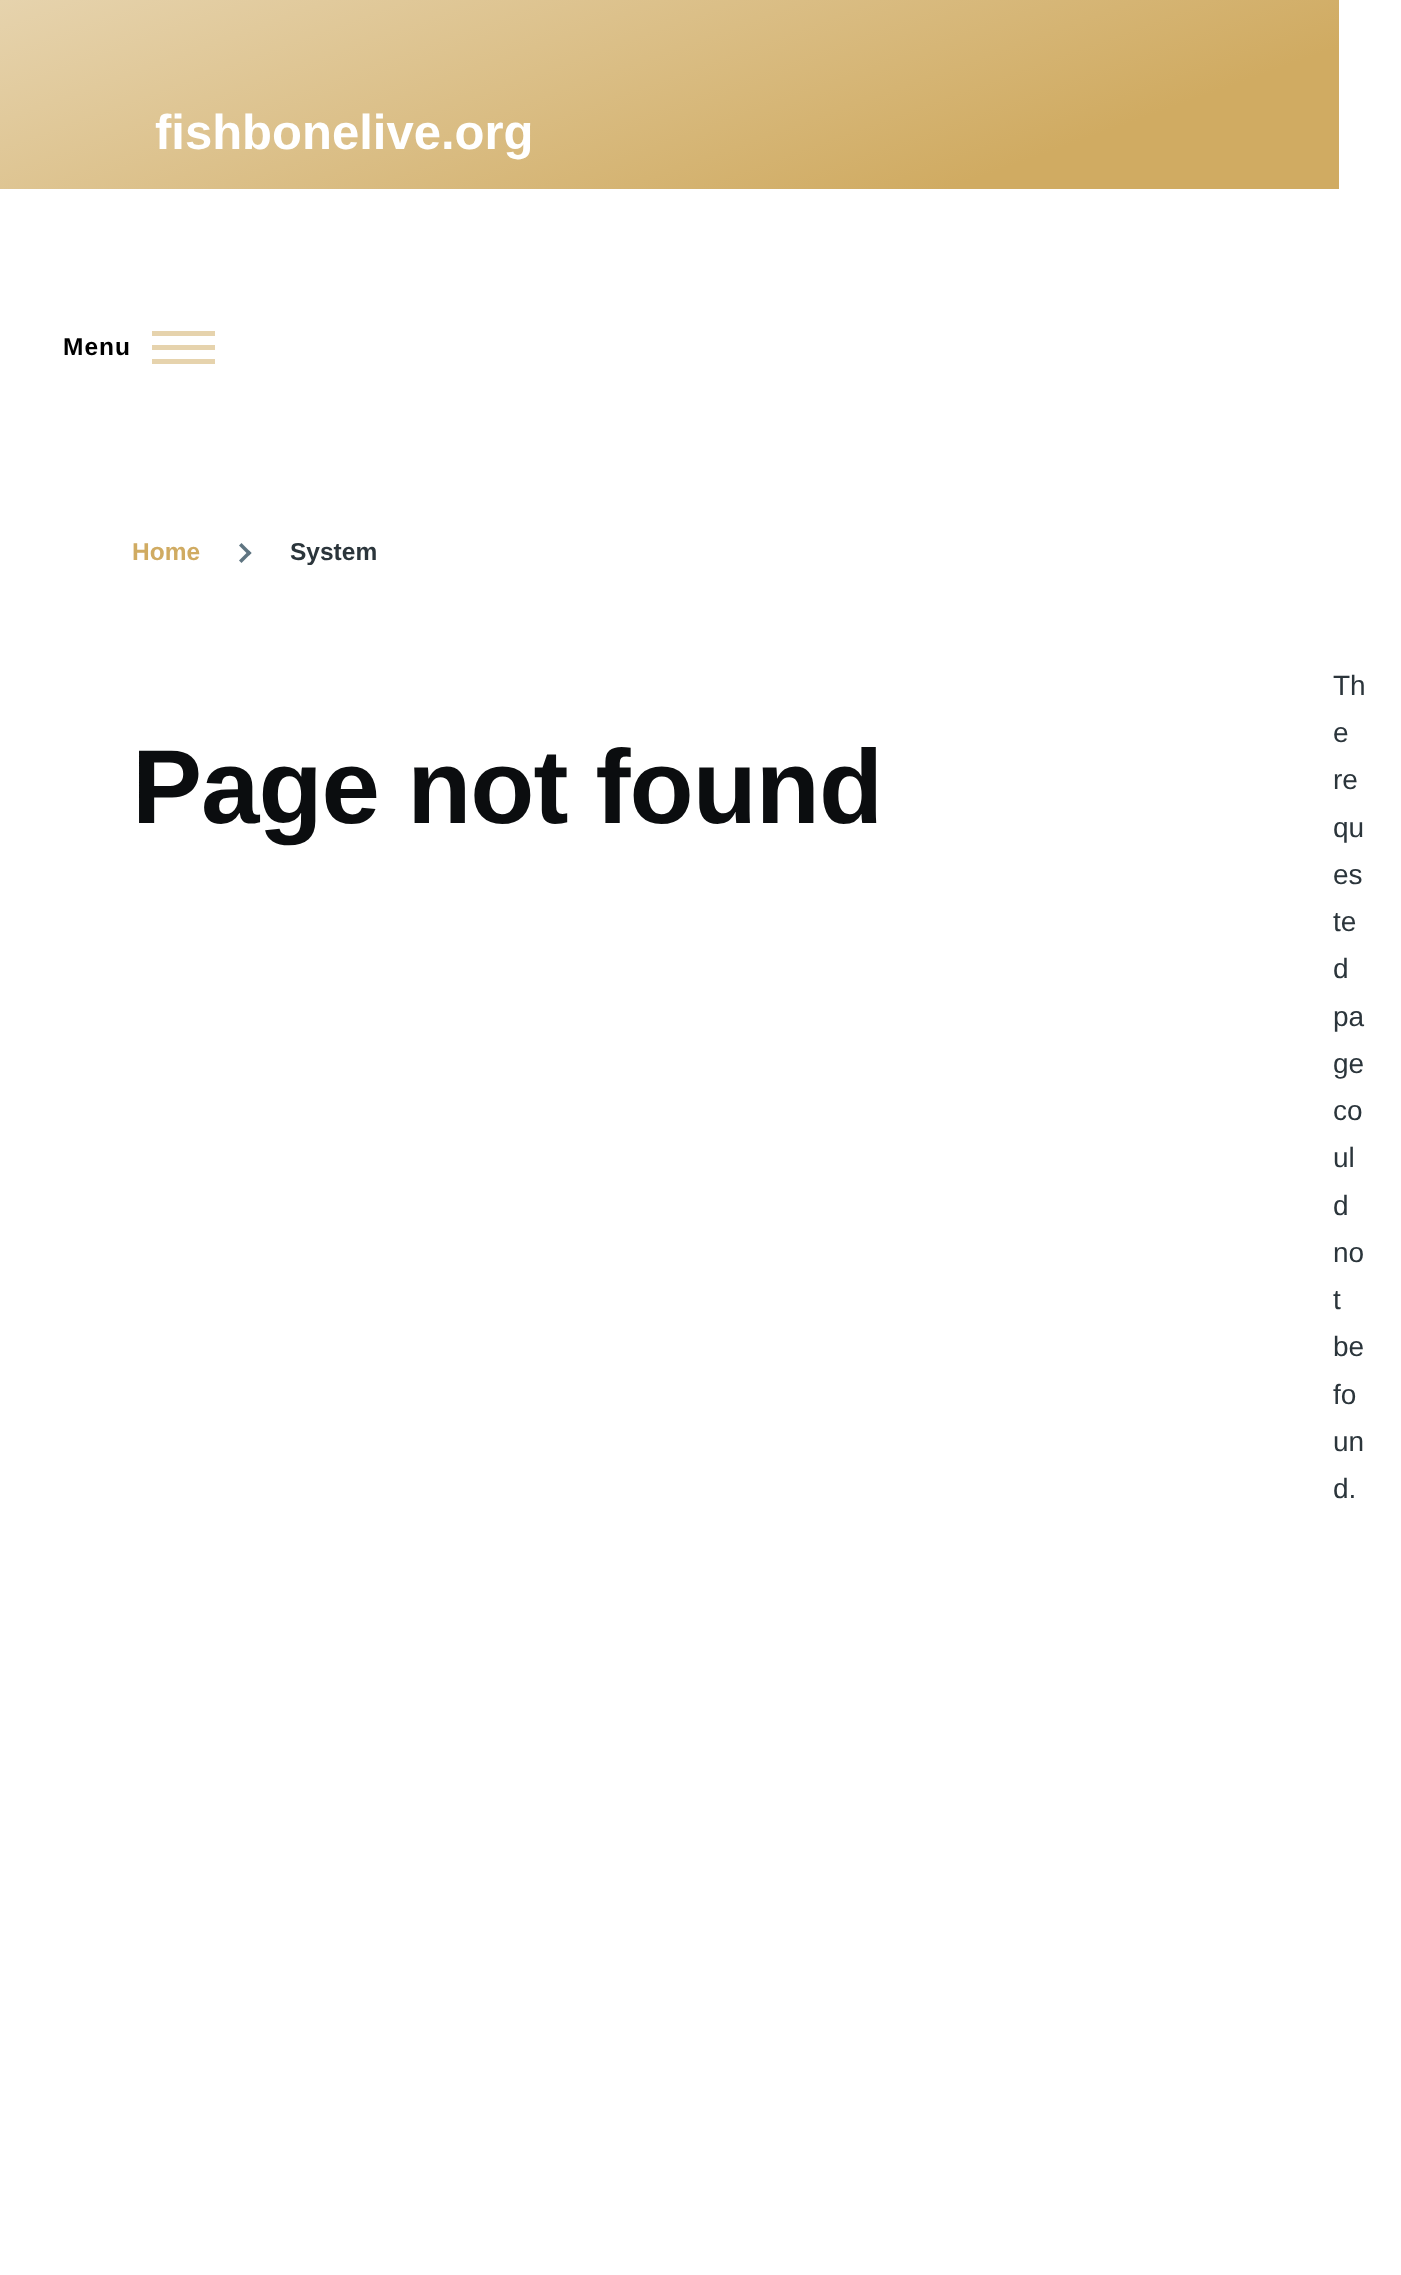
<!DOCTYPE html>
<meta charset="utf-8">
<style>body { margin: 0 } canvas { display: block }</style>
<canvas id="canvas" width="1401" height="2275"></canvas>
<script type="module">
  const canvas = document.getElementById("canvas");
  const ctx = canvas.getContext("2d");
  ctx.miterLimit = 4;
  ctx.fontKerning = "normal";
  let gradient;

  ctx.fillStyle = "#ffffff";
  ctx.fillRect(0, 0, 1401, 2275);
  gradient = ctx.createLinearGradient(561, -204, 778, 393);
  gradient.addColorStop(0, "#e6d3ad");
  gradient.addColorStop(0.79, "#d0ab62");
  ctx.fillStyle = gradient;
  ctx.fillRect(0, 0, 1339, 189);
  ctx.font = "bold 49px Liberation Sans";
  ctx.fillStyle = "#ffffff";
  ctx.fillText("fishbonelive.org", 155, 149);
  ctx.letterSpacing = "1px";
  ctx.font = "bold 24.5px Liberation Sans";
  ctx.fillStyle = "#000000";
  ctx.fillText("Menu", 63, 355);
  ctx.fillStyle = "#e6d3ad";
  ctx.fillRect(152, 345, 63, 5);
  ctx.fillRect(152, 331, 63, 5);
  ctx.fillRect(152, 359, 63, 5);
  ctx.letterSpacing = "0px";
  ctx.fillStyle = "#d0ab62";
  ctx.fillText("Home", 132, 560);
  ctx.fillStyle = "#5f7581";
  ctx.beginPath();
  ctx.moveTo(241.5, 543);
  ctx.lineTo(251.5, 553);
  ctx.lineTo(249, 555.5);
  ctx.lineTo(239, 545.5);
  ctx.closePath();
  ctx.fill();
  ctx.beginPath();
  ctx.moveTo(249, 550.5);
  ctx.lineTo(251.5, 553);
  ctx.lineTo(241.5, 563);
  ctx.lineTo(239, 560.5);
  ctx.closePath();
  ctx.fill();
  ctx.fillStyle = "#2b353b";
  ctx.fillText("System", 290, 560);
  ctx.font = "28px Liberation Sans";
  ctx.fillText("Th", 1333, 695);
  ctx.fillText("e", 1333, 742);
  ctx.letterSpacing = "-1px";
  ctx.font = "bold 105px Liberation Sans";
  ctx.fillStyle = "#0b0d0f";
  ctx.fillText("Page not found", 132, 823);
  ctx.letterSpacing = "0px";
  ctx.font = "28px Liberation Sans";
  ctx.fillStyle = "#2b353b";
  ctx.fillText("re", 1333, 789);
  ctx.fillText("qu", 1333, 837);
  ctx.fillText("es", 1333, 884);
  ctx.fillText("te", 1333, 931);
  ctx.fillText("d", 1333, 978);
  ctx.fillText("pa", 1333, 1026);
  ctx.fillText("ge", 1333, 1073);
  ctx.fillText("co", 1333, 1120);
  ctx.fillText("ul", 1333, 1167);
  ctx.fillText("d", 1333, 1215);
  ctx.fillText("no", 1333, 1262);
  ctx.fillText("t", 1333, 1309);
  ctx.fillText("be", 1333, 1356);
  ctx.fillText("fo", 1333, 1404);
  ctx.fillText("un", 1333, 1451);
  ctx.fillText("d.", 1333, 1498);
</script>
